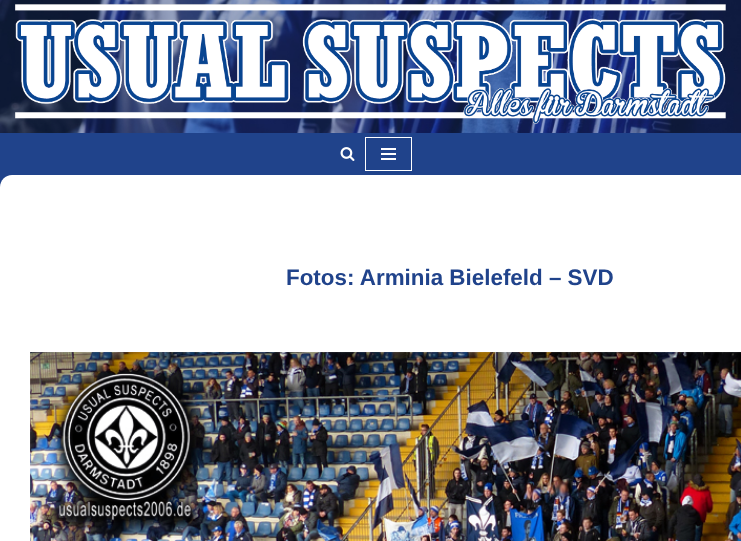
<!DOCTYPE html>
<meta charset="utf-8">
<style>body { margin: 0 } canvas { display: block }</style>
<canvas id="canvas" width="741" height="541"></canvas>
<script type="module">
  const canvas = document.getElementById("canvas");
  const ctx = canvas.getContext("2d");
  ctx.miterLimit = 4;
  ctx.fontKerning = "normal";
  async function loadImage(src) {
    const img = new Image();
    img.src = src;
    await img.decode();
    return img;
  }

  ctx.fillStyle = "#20438b";
  ctx.fillRect(0, 0, 741, 541);
  ctx.drawImage(await loadImage("img1.png"), 0, 0, 741, 133);
  ctx.drawImage(await loadImage("img2.png"), 15, 4, 711, 120);
  ctx.drawImage(await loadImage("img3.png"), 340, 147, 15, 14);
  ctx.strokeStyle = "#ffffff";
  ctx.strokeRect(365.5, 137.5, 46, 33);
  ctx.fillStyle = "#ffffff";
  ctx.fillRect(381, 148, 15, 2);
  ctx.fillRect(381, 153, 15, 2);
  ctx.fillRect(381, 158, 15, 2);
  ctx.beginPath();
  ctx.moveTo(12, 175);
  ctx.lineTo(741, 175);
  ctx.lineTo(741, 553);
  ctx.lineTo(12, 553);
  ctx.bezierCurveTo(5.5, 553, 0, 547.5, 0, 541);
  ctx.lineTo(0, 187);
  ctx.bezierCurveTo(0, 180.5, 5.5, 175, 12, 175);
  ctx.closePath();
  ctx.fill();
  ctx.font = "bold 22.4px Liberation Sans";
  ctx.fillStyle = "#20438b";
  ctx.fillText("Fotos: Arminia Bielefeld – SVD", 286, 285);
  ctx.drawImage(await loadImage("img4.png"), 30, 352, 711, 189);
</script>
